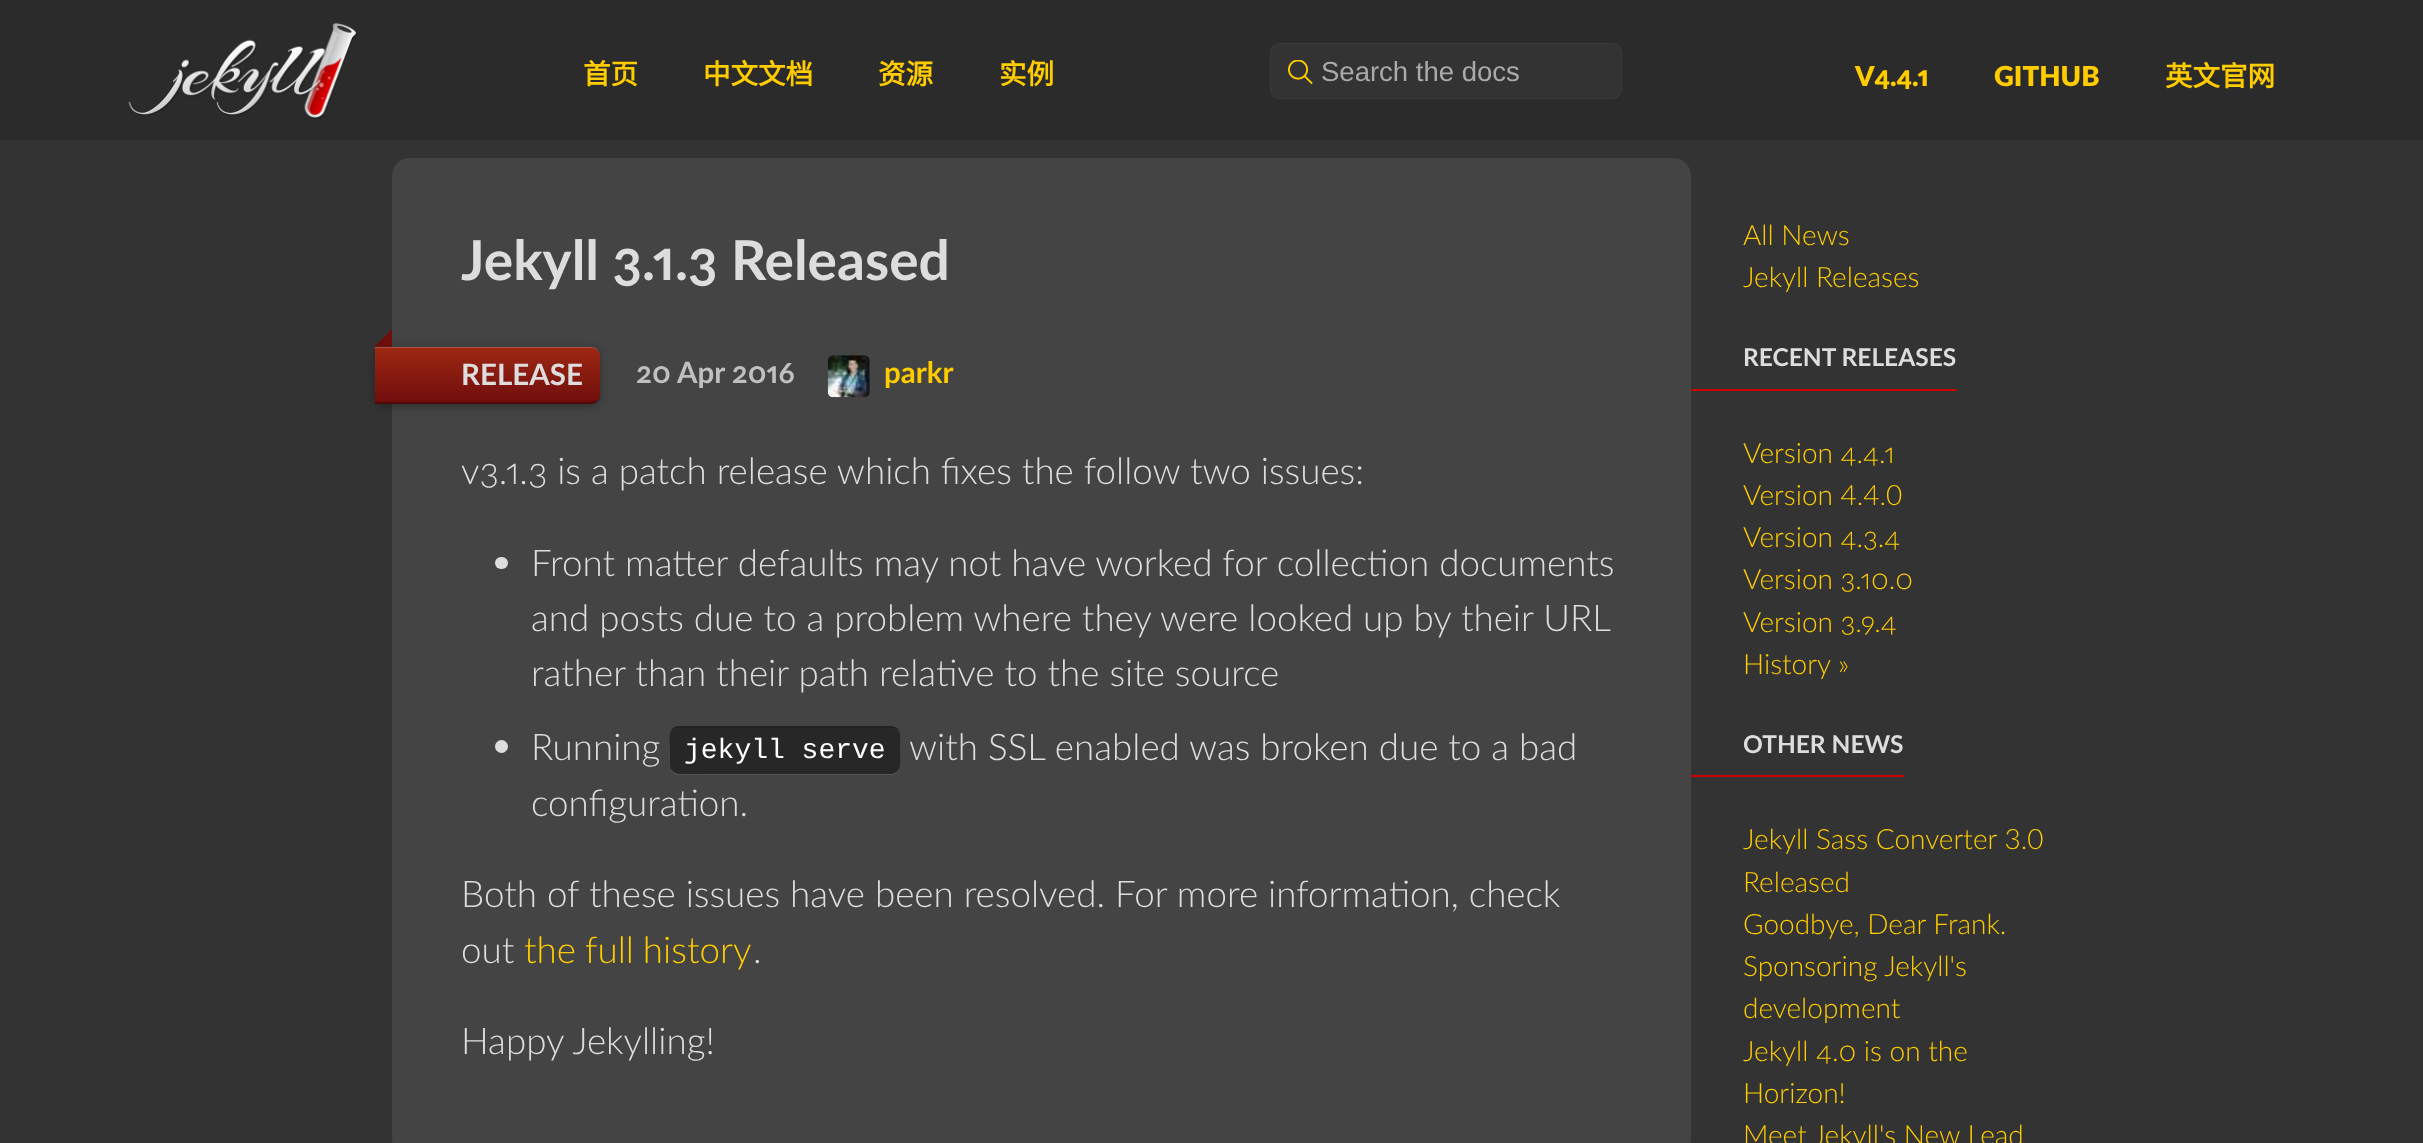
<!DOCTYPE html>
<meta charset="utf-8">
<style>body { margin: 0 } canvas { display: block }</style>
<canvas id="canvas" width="2423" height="1143"></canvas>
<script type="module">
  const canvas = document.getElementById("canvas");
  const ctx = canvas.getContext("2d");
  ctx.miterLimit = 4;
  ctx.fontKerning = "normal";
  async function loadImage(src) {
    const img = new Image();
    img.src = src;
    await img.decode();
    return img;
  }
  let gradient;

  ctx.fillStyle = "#333333";
  ctx.fillRect(0, 0, 2423, 1143);
  ctx.fillStyle = "#2b2b2b";
  ctx.fillRect(0, 0, 2423, 140);
  ctx.drawImage(await loadImage("img1.png"), 128, 22, 229, 97);
  ctx.font = "bold 27.5px Noto Sans CJK SC";
  ctx.fillStyle = "#ffcc00";
  ctx.fillText("首页", 583, 84);
  ctx.fillText("中文文档", 703, 84);
  ctx.fillText("资源", 878, 84);
  ctx.fillText("实例", 999, 84);
  ctx.fillStyle = "#555555";
  ctx.filter = "blur(1px)";
  ctx.beginPath();
  ctx.roundRect(1271, 44, 350, 54, 9);
  ctx.fill();
  ctx.filter = "none";
  ctx.fillStyle = "#333333";
  ctx.beginPath();
  ctx.roundRect(1271, 44, 350, 54, 9);
  ctx.fill();
  ctx.drawImage(await loadImage("img2.png"), 1288, 60, 25, 24);
  ctx.font = "27.5px Liberation Sans";
  ctx.fillStyle = "#aaaaaa";
  ctx.fillText("Search the docs", 1321, 81);
  ctx.font = "900 27.5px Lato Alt";
  ctx.fillStyle = "#ffcc00";
  ctx.fillText("V4.4.1", 1855, 86);
  ctx.font = "900 27.5px Lato";
  ctx.fillText("GITHUB", 1994, 86);
  ctx.font = "bold 27.5px Noto Sans CJK SC";
  ctx.fillText("英文官网", 2165, 86);
  ctx.fillStyle = "#444444";
  ctx.beginPath();
  ctx.roundRect(392, 158, 1299, 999, 18);
  ctx.fill();
  ctx.font = "bold 55.1px Lato Alt";
  ctx.fillStyle = "#dddddd";
  ctx.fillText("Jekyll 3.1.3 Released", 461, 280);
  ctx.fillStyle = "rgba(0, 0, 0, 0.3)";
  ctx.filter = "blur(4.5px)";
  ctx.beginPath();
  ctx.roundRect(375, 348, 225, 58, 9);
  ctx.fill();
  ctx.filter = "none";
  gradient = ctx.createLinearGradient(487, 347, 487, 404);
  gradient.addColorStop(0, "#9e2812");
  gradient.addColorStop(1, "#6f0d0d");
  ctx.fillStyle = gradient;
  ctx.beginPath();
  ctx.roundRect(375, 347, 225, 57, [0, 9, 9, 0]);
  ctx.fill();
  ctx.fillStyle = "rgba(0, 0, 0, 0.3)";
  ctx.beginPath();
  ctx.moveTo(375, 402);
  ctx.lineTo(375, 404);
  ctx.lineTo(591, 404);
  ctx.bezierCurveTo(596, 404, 600, 400, 600, 395);
  ctx.lineTo(600, 394);
  ctx.bezierCurveTo(600, 399, 596, 402, 592, 402);
  ctx.closePath();
  ctx.fill();
  ctx.fillStyle = "rgba(255, 255, 255, 0.2)";
  ctx.beginPath();
  ctx.moveTo(375, 347);
  ctx.lineTo(375, 348);
  ctx.lineTo(592, 348);
  ctx.bezierCurveTo(596, 348, 600, 352, 600, 357);
  ctx.bezierCurveTo(600, 352, 597, 347, 591, 347);
  ctx.closePath();
  ctx.fill();
  ctx.fillStyle = "#6f0d0d";
  ctx.beginPath();
  ctx.moveTo(392, 329);
  ctx.lineTo(392, 346.5);
  ctx.lineTo(383, 338);
  ctx.closePath();
  ctx.fill();
  ctx.beginPath();
  ctx.moveTo(392, 346.5);
  ctx.lineTo(374.5, 346.5);
  ctx.lineTo(383, 338);
  ctx.closePath();
  ctx.fill();
  ctx.font = "bold 29.5px Lato";
  ctx.fillStyle = "#dddddd";
  ctx.fillText("RELEASE", 461, 385);
  ctx.font = "bold 29.5px Lato Alt";
  ctx.fillStyle = "#c0c0c0";
  ctx.fillText("20 Apr 2016", 636, 383);
  ctx.drawImage(await loadImage("img3.png"), 827, 355, 43, 43);
  ctx.font = "bold 29.5px Lato";
  ctx.fillStyle = "#ffcc00";
  ctx.fillText("parkr", 884, 383);
  ctx.font = "300 36.75px Lato Alt";
  ctx.fillStyle = "#dddddd";
  ctx.fillText("v3.1.3 is a patch release which fixes the follow two issues:", 461, 484);
  ctx.beginPath();
  ctx.roundRect(495, 557, 13, 12, 6);
  ctx.fill();
  ctx.font = "300 36.75px Lato";
  ctx.fillText("Front matter defaults may not have worked for collection documents", 531, 576);
  ctx.fillText("and posts due to a problem where they were looked up by their URL", 531, 631);
  ctx.fillText("rather than their path relative to the site source", 531, 686);
  ctx.beginPath();
  ctx.arc(501.5, 746.5, 6.5, 0, Math.PI * 2);
  ctx.fill();
  ctx.fillText("Running", 531, 760);
  ctx.fillStyle = "#222222";
  ctx.beginPath();
  ctx.moveTo(679, 726);
  ctx.bezierCurveTo(667, 726, 670, 742, 670, 749);
  ctx.lineTo(670, 765);
  ctx.lineTo(670, 746);
  ctx.bezierCurveTo(670, 739, 669, 728, 679, 728);
  ctx.lineTo(891, 728);
  ctx.bezierCurveTo(901, 728, 900, 739, 900, 746);
  ctx.lineTo(899, 766);
  ctx.bezierCurveTo(901, 762, 900, 754, 900, 749);
  ctx.bezierCurveTo(900, 742, 903, 726, 891, 726);
  ctx.closePath();
  ctx.fill();
  ctx.fillStyle = "#575757";
  ctx.beginPath();
  ctx.moveTo(670, 737);
  ctx.lineTo(670, 757);
  ctx.bezierCurveTo(670, 764, 669, 775, 679, 775);
  ctx.lineTo(891, 775);
  ctx.bezierCurveTo(901, 775, 900, 764, 900, 757);
  ctx.lineTo(899, 736);
  ctx.lineTo(900, 755);
  ctx.bezierCurveTo(900, 762, 901, 773, 891, 774);
  ctx.lineTo(714, 774);
  ctx.bezierCurveTo(664, 774, 670, 780, 670, 737);
  ctx.closePath();
  ctx.fill();
  ctx.fillStyle = "#272727";
  ctx.beginPath();
  ctx.roundRect(670, 728, 230, 46, 9);
  ctx.fill();
  ctx.font = "28px Liberation Mono";
  ctx.fillStyle = "#ffffff";
  ctx.fillText("jekyll serve", 684, 758);
  ctx.font = "300 36.75px Lato";
  ctx.fillStyle = "#dddddd";
  ctx.fillText("with SSL enabled was broken due to a bad", 909, 760);
  ctx.fillText("configuration.", 531, 816);
  ctx.fillText("Both of these issues have been resolved. For more information, check", 461, 907);
  ctx.fillText("out", 461, 963);
  ctx.wordSpacing = "-1px";
  ctx.fillStyle = "#ffcc00";
  ctx.fillText("the full history", 524, 963);
  ctx.wordSpacing = "0px";
  ctx.fillStyle = "#dddddd";
  ctx.fillText(".", 753, 963);
  ctx.fillText("Happy Jekylling!", 461, 1054);
  ctx.font = "300 28px Lato";
  ctx.fillStyle = "#ffcc00";
  ctx.fillText("All News", 1743, 245);
  ctx.fillText("Jekyll Releases", 1743, 287);
  ctx.fillStyle = "#cc0000";
  ctx.fillRect(1691, 389, 266, 2);
  ctx.font = "bold 24.5px Lato";
  ctx.fillStyle = "#dddddd";
  ctx.fillText("RECENT RELEASES", 1743, 366);
  ctx.font = "300 28px Lato Alt";
  ctx.fillStyle = "#ffcc00";
  ctx.fillText("Version 4.4.1", 1743, 463);
  ctx.font = "300 28px Lato";
  ctx.fillText("Version 4.4.0", 1743, 505);
  ctx.font = "300 28px Lato Alt";
  ctx.fillText("Version 4.3.4", 1743, 547);
  ctx.fillText("Version 3.10.0", 1743, 589);
  ctx.fillText("Version 3.9.4", 1743, 632);
  ctx.font = "300 28px Lato";
  ctx.fillText("History »", 1743, 674);
  ctx.fillStyle = "#cc0000";
  ctx.fillRect(1691, 775, 213, 2);
  ctx.font = "bold 24.5px Lato";
  ctx.fillStyle = "#dddddd";
  ctx.fillText("OTHER NEWS", 1743, 753);
  ctx.font = "300 28px Lato";
  ctx.fillStyle = "#ffcc00";
  ctx.fillText("Jekyll Sass Converter 3.0", 1743, 849);
  ctx.fillText("Released", 1743, 892);
  ctx.fillText("Goodbye, Dear Frank.", 1743, 934);
  ctx.fillText("Sponsoring Jekyll's", 1743, 976);
  ctx.fillText("development", 1743, 1018);
  ctx.font = "300 28px Lato Alt";
  ctx.fillText("Jekyll 4.0 is on the", 1743, 1061);
  ctx.font = "300 28px Lato";
  ctx.fillText("Horizon!", 1743, 1103);
  ctx.fillText("Meet Jekyll's New Lead", 1743, 1145);
</script>
